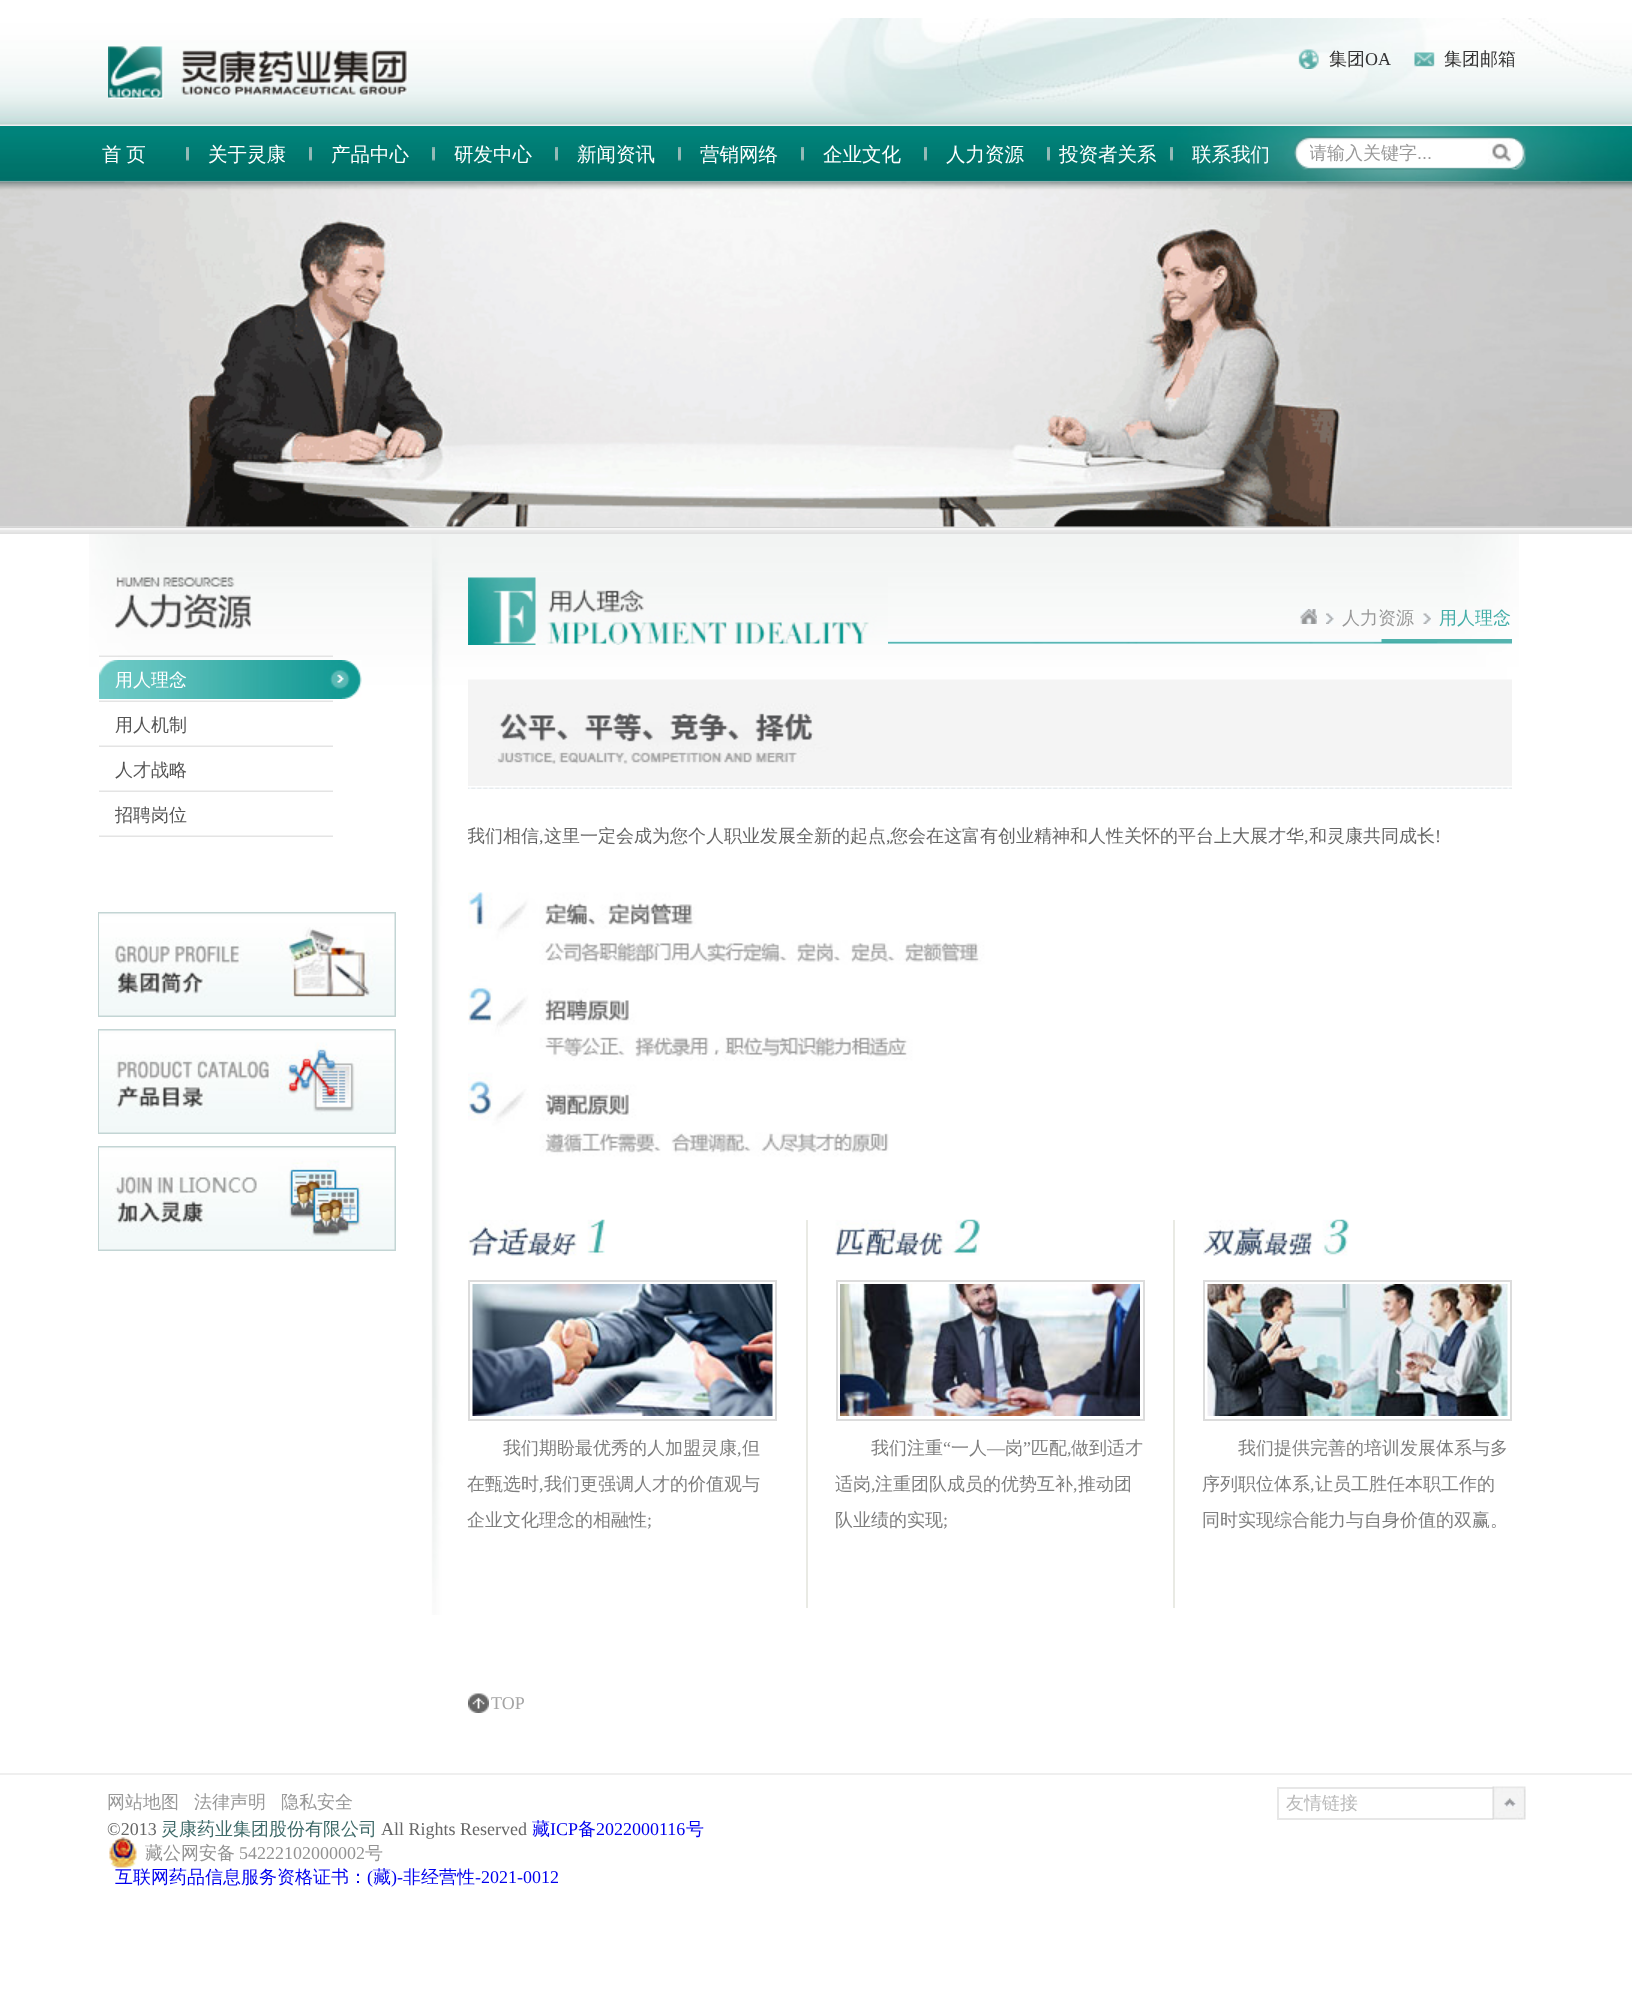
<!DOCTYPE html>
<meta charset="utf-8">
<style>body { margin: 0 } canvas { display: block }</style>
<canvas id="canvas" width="1632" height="2006"></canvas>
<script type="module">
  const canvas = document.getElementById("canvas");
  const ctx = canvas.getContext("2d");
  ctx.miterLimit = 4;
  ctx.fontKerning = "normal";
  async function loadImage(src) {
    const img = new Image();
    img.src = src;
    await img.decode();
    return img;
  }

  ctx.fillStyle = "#ffffff";
  ctx.fillRect(0, 0, 1632, 2006);
  ctx.drawImage(await loadImage("img1.png"), 0, 18, 1632, 108);
  ctx.drawImage(await loadImage("img2.png"), 108, 46, 300, 53);
  ctx.drawImage(await loadImage("img3.png"), 1298, 49, 21, 20);
  ctx.font = "500 18px WenQuanYi Zen Hei";
  ctx.fillStyle = "#333333";
  ctx.fillText("集团", 1329, 65);
  ctx.font = "18px Liberation Serif";
  ctx.fillText("OA", 1365, 65);
  ctx.drawImage(await loadImage("img4.png"), 1414, 52, 21, 15);
  ctx.font = "500 18px WenQuanYi Zen Hei";
  ctx.fillText("集团邮箱", 1444, 65);
  ctx.drawImage(await loadImage("img5.png"), 0, 126, 1632, 56);
  ctx.wordSpacing = "-1px";
  ctx.font = "500 19.5px WenQuanYi Zen Hei";
  ctx.fillStyle = "#ffffff";
  ctx.fillText("首 页", 102, 161);
  ctx.drawImage(await loadImage("img6.png"), 186, 147, 3, 14);
  ctx.wordSpacing = "0px";
  ctx.fillText("关于灵康", 208, 161);
  ctx.drawImage(await loadImage("img6.png"), 309, 147, 3, 14);
  ctx.fillText("产品中心", 331, 161);
  ctx.drawImage(await loadImage("img6.png"), 432, 147, 3, 14);
  ctx.fillText("研发中心", 454, 161);
  ctx.drawImage(await loadImage("img6.png"), 555, 147, 3, 14);
  ctx.fillText("新闻资讯", 577, 161);
  ctx.drawImage(await loadImage("img6.png"), 678, 147, 3, 14);
  ctx.fillText("营销网络", 700, 161);
  ctx.drawImage(await loadImage("img6.png"), 801, 147, 3, 14);
  ctx.fillText("企业文化", 823, 161);
  ctx.drawImage(await loadImage("img6.png"), 924, 147, 3, 14);
  ctx.fillText("人力资源", 946, 161);
  ctx.drawImage(await loadImage("img6.png"), 1047, 147, 3, 14);
  ctx.fillText("投资者关系", 1059, 161);
  ctx.drawImage(await loadImage("img6.png"), 1170, 147, 3, 14);
  ctx.fillText("联系我们", 1192, 161);
  ctx.drawImage(await loadImage("img7.png"), 1294, 136, 232, 34);
  ctx.save();
  ctx.beginPath();
  ctx.rect(1310, 138, 172, 30);
  ctx.clip();
  ctx.font = "500 18px WenQuanYi Zen Hei";
  ctx.fillStyle = "#999999";
  ctx.fillText("请输入关键字", 1309, 159);
  ctx.restore();
  ctx.font = "18px Liberation Sans";
  ctx.fillStyle = "#999999";
  ctx.fillText("...", 1417, 159);
  ctx.drawImage(await loadImage("img8.png"), 1488, 139, 27, 28);
  ctx.drawImage(await loadImage("img9.png"), 0, 526, 1632, 8);
  ctx.drawImage(await loadImage("img10.png"), 0, 181, 1632, 346);
  ctx.drawImage(await loadImage("img11.png"), 0, 181, 1632, 8);
  ctx.drawImage(await loadImage("img12.png"), 89, 534, 1430, 1081);
  ctx.drawImage(await loadImage("img13.png"), 115, 577, 136, 52);
  ctx.drawImage(await loadImage("img14.png"), 99, 655, 234, 2);
  ctx.drawImage(await loadImage("img15.png"), 99, 700, 234, 2);
  ctx.drawImage(await loadImage("img16.png"), 99, 660, 263, 39);
  ctx.font = "500 18px WenQuanYi Zen Hei";
  ctx.fillStyle = "#ffffff";
  ctx.fillText("用人理念", 115, 686);
  ctx.drawImage(await loadImage("img15.png"), 99, 745, 234, 2);
  ctx.fillStyle = "#545454";
  ctx.fillText("用人机制", 115, 731);
  ctx.drawImage(await loadImage("img15.png"), 99, 790, 234, 2);
  ctx.fillText("人才战略", 115, 776);
  ctx.drawImage(await loadImage("img15.png"), 99, 835, 234, 2);
  ctx.fillText("招聘岗位", 115, 821);
  ctx.strokeStyle = "#c3d5d4";
  ctx.lineWidth = 2;
  ctx.strokeRect(99, 913, 296, 103);
  ctx.drawImage(await loadImage("img17.png"), 99, 913, 296, 103);
  ctx.strokeRect(99, 1030, 296, 103);
  ctx.drawImage(await loadImage("img18.png"), 99, 1030, 296, 103);
  ctx.strokeRect(99, 1147, 296, 103);
  ctx.drawImage(await loadImage("img19.png"), 99, 1147, 296, 103);
  ctx.drawImage(await loadImage("img20.png"), 888, 639, 624, 6);
  ctx.drawImage(await loadImage("img21.png"), 468, 577, 420, 68);
  ctx.drawImage(await loadImage("img22.png"), 1300, 609, 17, 15);
  ctx.drawImage(await loadImage("img23.png"), 1326, 613, 8, 11);
  ctx.fillStyle = "#999999";
  ctx.fillText("人力资源", 1342, 624);
  ctx.drawImage(await loadImage("img24.png"), 1423, 613, 8, 11);
  ctx.fillStyle = "#44aea8";
  ctx.fillText("用人理念", 1439, 624);
  ctx.drawImage(await loadImage("img25.png"), 468, 787, 1044, 2);
  ctx.drawImage(await loadImage("img26.png"), 468, 679, 1044, 107);
  ctx.save();
  ctx.beginPath();
  ctx.rect(468, 827, 1044, 781);
  ctx.clip();
  ctx.fillStyle = "#666666";
  ctx.fillText("我们相信", 467, 842);
  ctx.restore();
  ctx.font = "18px Liberation Serif";
  ctx.fillStyle = "#666666";
  ctx.fillText(",", 539, 842);
  ctx.font = "500 18px WenQuanYi Zen Hei";
  ctx.fillText("这里一定会成为您个人职业发展全新的起点", 544, 842);
  ctx.font = "18px Liberation Serif";
  ctx.fillText(",", 886, 842);
  ctx.font = "500 18px WenQuanYi Zen Hei";
  ctx.fillText("您会在这富有创业精神和人性关怀的平台上大展才华", 890, 842);
  ctx.font = "18px Liberation Serif";
  ctx.fillText(",", 1304, 842);
  ctx.font = "500 18px WenQuanYi Zen Hei";
  ctx.fillText("和灵康共同成长", 1309, 842);
  ctx.font = "18px Liberation Serif";
  ctx.fillText("!", 1435, 842);
  ctx.drawImage(await loadImage("img28.png"), 468, 1219, 137, 37);
  ctx.drawImage(await loadImage("img30.png"), 835, 1219, 145, 37);
  ctx.drawImage(await loadImage("img32.png"), 1203, 1219, 146, 37);
  ctx.drawImage(await loadImage("img27.png"), 468, 844, 954, 376);
  ctx.strokeStyle = "#dcdcdc";
  ctx.strokeRect(469, 1281, 307, 139);
  ctx.drawImage(await loadImage("img29.png"), 472, 1284, 301, 132);
  ctx.font = "500 18px WenQuanYi Zen Hei";
  ctx.fillStyle = "#7e7e7e";
  ctx.fillText("我们期盼最优秀的人加盟灵康", 503, 1454);
  ctx.font = "18px Liberation Serif";
  ctx.fillText(",", 737, 1454);
  ctx.font = "500 18px WenQuanYi Zen Hei";
  ctx.fillText("但", 742, 1454);
  ctx.fillText("在甄选时", 467, 1490);
  ctx.font = "18px Liberation Serif";
  ctx.fillText(",", 539, 1490);
  ctx.font = "500 18px WenQuanYi Zen Hei";
  ctx.fillText("我们更强调人才的价值观与", 544, 1490);
  ctx.fillText("企业文化理念的相融性", 467, 1526);
  ctx.font = "18px Liberation Serif";
  ctx.fillText(";", 647, 1526);
  ctx.fillStyle = "#e9eae4";
  ctx.fillRect(1173, 1220, 2, 388);
  ctx.fillRect(806, 1220, 2, 388);
  ctx.strokeRect(837, 1281, 307, 139);
  ctx.drawImage(await loadImage("img31.png"), 840, 1284, 300, 132);
  ctx.font = "500 18px WenQuanYi Zen Hei";
  ctx.fillStyle = "#7e7e7e";
  ctx.fillText("我们注重", 871, 1454);
  ctx.font = "18px Liberation Serif";
  ctx.fillText("“", 943, 1454);
  ctx.font = "500 18px WenQuanYi Zen Hei";
  ctx.fillText("一人", 951, 1454);
  ctx.fillText("岗", 1005, 1454);
  ctx.font = "18px Liberation Serif";
  ctx.fillText("”", 1023, 1454);
  ctx.font = "500 18px WenQuanYi Zen Hei";
  ctx.fillText("匹配", 1031, 1454);
  ctx.fillText("做到适才", 1071, 1454);
  ctx.font = "18px Liberation Serif";
  ctx.fillText("—", 987, 1454);
  ctx.fillText(",", 1067, 1454);
  ctx.font = "500 18px WenQuanYi Zen Hei";
  ctx.fillText("适岗", 835, 1490);
  ctx.font = "18px Liberation Serif";
  ctx.fillText(",", 871, 1490);
  ctx.font = "500 18px WenQuanYi Zen Hei";
  ctx.fillText("注重团队成员的优势互补", 875, 1490);
  ctx.font = "18px Liberation Serif";
  ctx.fillText(",", 1073, 1490);
  ctx.font = "500 18px WenQuanYi Zen Hei";
  ctx.fillText("推动团", 1078, 1490);
  ctx.fillText("队业绩的实现", 835, 1526);
  ctx.font = "18px Liberation Serif";
  ctx.fillText(";", 943, 1526);
  ctx.strokeRect(1204, 1281, 307, 139);
  ctx.drawImage(await loadImage("img33.png"), 1207, 1284, 301, 132);
  ctx.font = "500 18px WenQuanYi Zen Hei";
  ctx.fillText("我们提供完善的培训发展体系与多", 1238, 1454);
  ctx.fillText("序列职位体系", 1202, 1490);
  ctx.font = "18px Liberation Serif";
  ctx.fillText(",", 1310, 1490);
  ctx.font = "500 18px WenQuanYi Zen Hei";
  ctx.fillText("让员工胜任本职工作的", 1315, 1490);
  ctx.fillText("同时实现综合能力与自身价值的双赢。", 1202, 1526);
  ctx.drawImage(await loadImage("img34.png"), 468, 1693, 21, 20);
  ctx.font = "18px Liberation Serif";
  ctx.fillStyle = "#a5a5a5";
  ctx.fillText("TOP", 491, 1709);
  ctx.fillStyle = "#efefef";
  ctx.fillRect(0, 1773, 1632, 2);
  ctx.font = "500 18px WenQuanYi Zen Hei";
  ctx.fillStyle = "#999999";
  ctx.fillText("网站地图", 107, 1808);
  ctx.fillText("法律声明", 194, 1808);
  ctx.fillText("隐私安全", 281, 1808);
  ctx.font = "18px Liberation Serif";
  ctx.fillStyle = "#666666";
  ctx.fillText("©2013", 107, 1835);
  ctx.font = "500 18px WenQuanYi Zen Hei";
  ctx.fillStyle = "#3f6a69";
  ctx.fillText("灵康药业集团股份有限公司", 161, 1835);
  ctx.font = "18px Liberation Serif";
  ctx.fillStyle = "#666666";
  ctx.fillText("All Rights Reserved", 381, 1835);
  ctx.font = "500 18px WenQuanYi Zen Hei";
  ctx.fillStyle = "#0000ee";
  ctx.fillText("藏", 532, 1835);
  ctx.font = "18px Liberation Serif";
  ctx.fillText("ICP", 550, 1835);
  ctx.font = "500 18px WenQuanYi Zen Hei";
  ctx.fillText("备", 578, 1835);
  ctx.font = "18px Liberation Serif";
  ctx.fillText("2022000116", 596, 1835);
  ctx.font = "500 18px WenQuanYi Zen Hei";
  ctx.fillText("号", 686, 1835);
  ctx.drawImage(await loadImage("img35.png"), 109, 1837, 28, 31);
  ctx.fillStyle = "#939393";
  ctx.fillText("藏公网安备", 145, 1859);
  ctx.font = "18px Liberation Serif";
  ctx.fillText("54222102000002", 239, 1859);
  ctx.font = "500 18px WenQuanYi Zen Hei";
  ctx.fillText("号", 365, 1859);
  ctx.fillStyle = "#0000ee";
  ctx.fillText("互联网药品信息服务资格证书：", 115, 1883);
  ctx.font = "18px Liberation Serif";
  ctx.fillText("(", 367, 1883);
  ctx.font = "500 18px WenQuanYi Zen Hei";
  ctx.fillText("藏", 373, 1883);
  ctx.font = "18px Liberation Serif";
  ctx.fillText(")-", 391, 1883);
  ctx.font = "500 18px WenQuanYi Zen Hei";
  ctx.fillText("非经营性", 403, 1883);
  ctx.font = "18px Liberation Serif";
  ctx.fillText("-2021-0012", 475, 1883);
  ctx.fillStyle = "#e7e7e7";
  ctx.fillRect(1277, 1787, 216, 2);
  ctx.fillRect(1277, 1818, 216, 2);
  ctx.fillRect(1277, 1787, 2, 33);
  ctx.font = "500 18px WenQuanYi Zen Hei";
  ctx.fillStyle = "#bababa";
  ctx.fillText("友情链接", 1286, 1809);
  ctx.drawImage(await loadImage("img36.png"), 1492, 1786, 34, 34);
</script>
